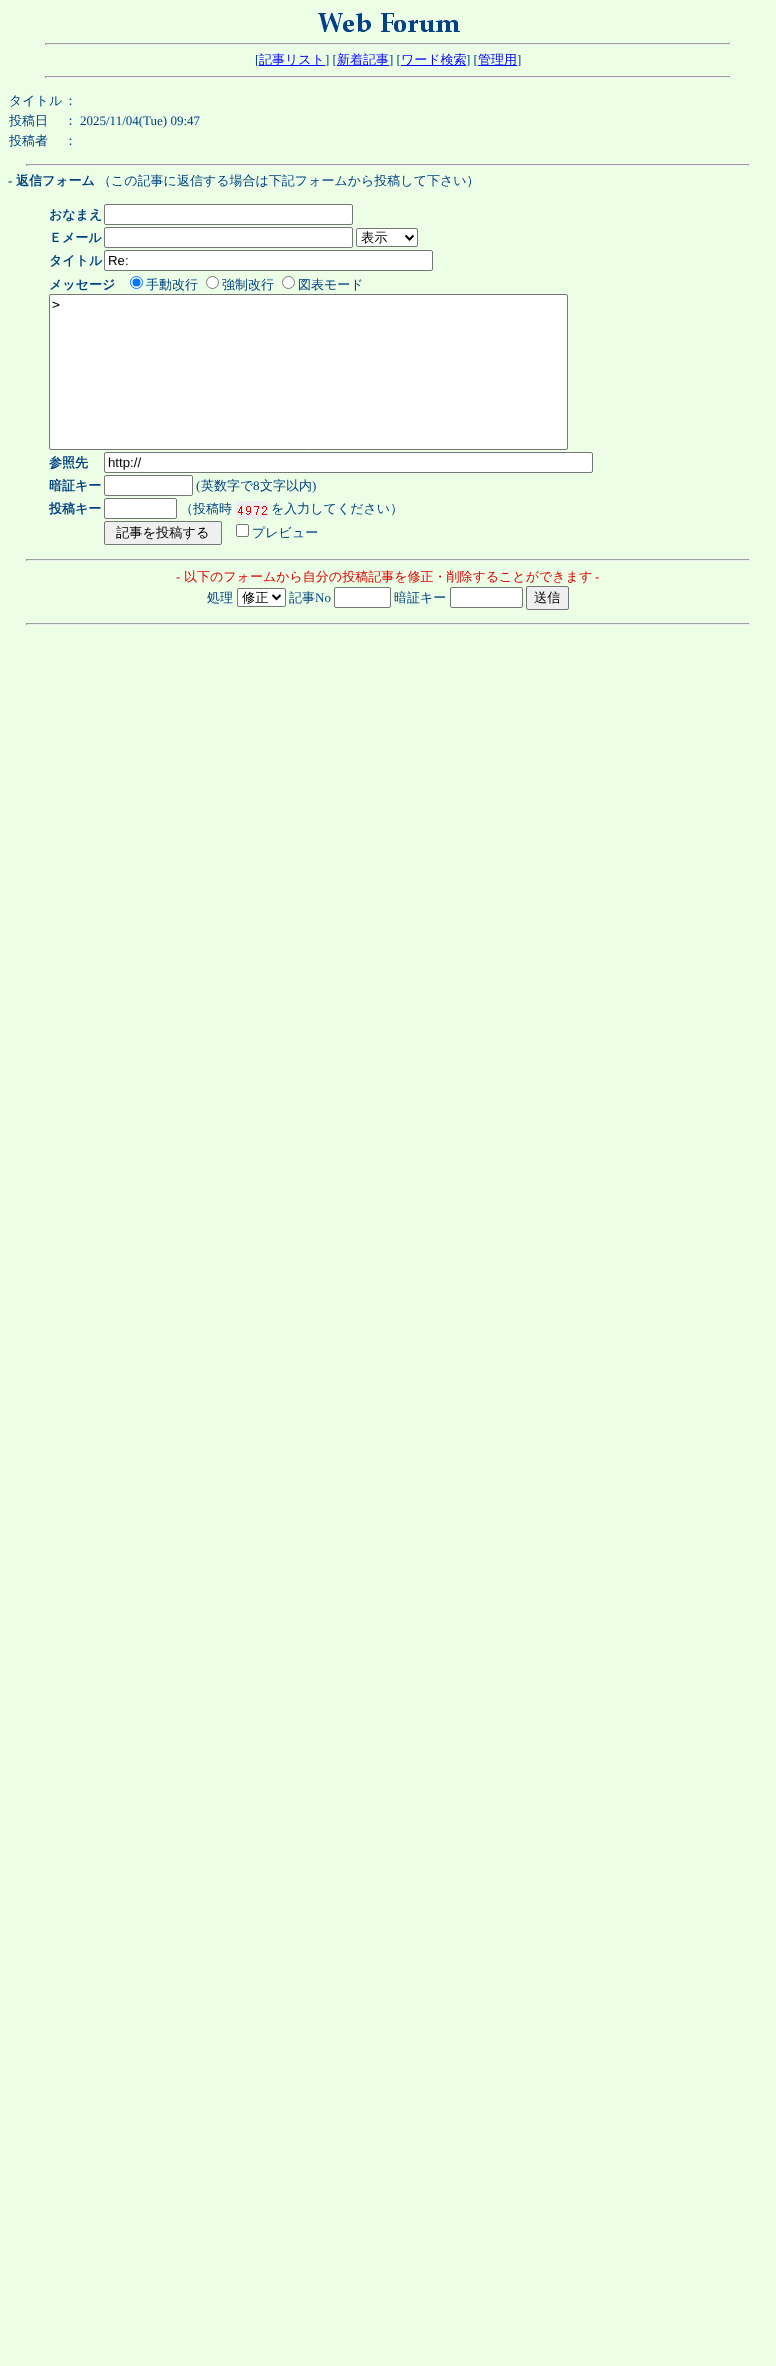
<!DOCTYPE html>
<meta charset="utf-8">
<style>body { margin: 0 } canvas { display: block }</style>
<canvas id="canvas" width="776" height="2366"></canvas>
<script type="module">
  const canvas = document.getElementById("canvas");
  const ctx = canvas.getContext("2d");
  ctx.miterLimit = 4;
  ctx.fontKerning = "normal";
  async function loadImage(src) {
    const img = new Image();
    img.src = src;
    await img.decode();
    return img;
  }

  ctx.fillStyle = "#ecffe6";
  ctx.fillRect(0, 0, 776, 2366);
  ctx.drawImage(await loadImage("img1.png"), 318, 13, 142, 19);
  ctx.fillStyle = "#9f9f9f";
  ctx.fillRect(45, 43, 686, 1);
  ctx.fillStyle = "#eeeeee";
  ctx.fillRect(730, 43, 1, 2);
  ctx.fillRect(45, 44, 686, 1);
  ctx.fillStyle = "#9f9f9f";
  ctx.fillRect(45, 43, 1, 2);
  ctx.font = "13px Liberation Serif";
  ctx.fillStyle = "#004080";
  ctx.fillText("[", 255, 64);
  ctx.fillStyle = "#0000ff";
  ctx.fillRect(259, 65, 66, 1);
  ctx.font = "500 13px WenQuanYi Zen Hei";
  ctx.fillText("記事リスト", 259, 64);
  ctx.font = "13px Liberation Serif";
  ctx.fillStyle = "#004080";
  ctx.fillText("] [", 325, 64);
  ctx.fillStyle = "#0000ff";
  ctx.fillRect(337, 65, 52, 1);
  ctx.font = "500 13px WenQuanYi Zen Hei";
  ctx.fillText("新着記事", 337, 64);
  ctx.font = "13px Liberation Serif";
  ctx.fillStyle = "#004080";
  ctx.fillText("] [", 389, 64);
  ctx.fillStyle = "#0000ff";
  ctx.fillRect(401, 65, 65, 1);
  ctx.font = "500 13px WenQuanYi Zen Hei";
  ctx.fillText("ワード検索", 401, 64);
  ctx.font = "13px Liberation Serif";
  ctx.fillStyle = "#004080";
  ctx.fillText("] [", 466, 64);
  ctx.fillStyle = "#0000ff";
  ctx.fillRect(478, 65, 39, 1);
  ctx.font = "500 13px WenQuanYi Zen Hei";
  ctx.fillText("管理用", 478, 64);
  ctx.font = "13px Liberation Serif";
  ctx.fillStyle = "#004080";
  ctx.fillText("]", 517, 64);
  ctx.fillStyle = "#9f9f9f";
  ctx.fillRect(45, 76, 686, 1);
  ctx.fillStyle = "#eeeeee";
  ctx.fillRect(730, 76, 1, 2);
  ctx.fillRect(45, 77, 686, 1);
  ctx.fillStyle = "#9f9f9f";
  ctx.fillRect(45, 76, 1, 2);
  ctx.font = "500 13px WenQuanYi Zen Hei";
  ctx.fillStyle = "#004080";
  ctx.fillText("タイトル", 9, 105);
  ctx.fillText("：", 64, 105);
  ctx.fillText("投稿日", 9, 125);
  ctx.fillText("：", 64, 125);
  ctx.font = "13px Liberation Serif";
  ctx.fillText("2025/11/04(Tue) 09:47", 80, 125);
  ctx.font = "500 13px WenQuanYi Zen Hei";
  ctx.fillText("投稿者", 9, 145);
  ctx.fillText("：", 64, 145);
  ctx.fillStyle = "#9f9f9f";
  ctx.fillRect(26, 164, 724, 1);
  ctx.fillStyle = "#eeeeee";
  ctx.fillRect(749, 164, 1, 2);
  ctx.fillRect(26, 165, 724, 1);
  ctx.fillStyle = "#9f9f9f";
  ctx.fillRect(26, 164, 1, 2);
  ctx.font = "bold 13px Liberation Serif";
  ctx.fillStyle = "#004080";
  ctx.fillText("-", 8, 185);
  ctx.font = "bold 13px WenQuanYi Zen Hei";
  ctx.fillText("返信フォーム", 16, 185);
  ctx.font = "500 13px WenQuanYi Zen Hei";
  ctx.fillText("（この記事に返信する場合は下記フォームから投稿して下さい）", 98, 185);
  ctx.font = "bold 13px WenQuanYi Zen Hei";
  ctx.fillText("おなまえ", 49, 219);
  ctx.fillStyle = "#ffffff";
  ctx.beginPath();
  ctx.roundRect(104.5, 204.5, 248, 20, 1.5);
  ctx.fill();
  ctx.strokeStyle = "#767676";
  ctx.stroke();
  ctx.fillStyle = "#004080";
  ctx.fillText("Ｅメール", 49, 242);
  ctx.fillStyle = "#ffffff";
  ctx.beginPath();
  ctx.roundRect(104.5, 227.5, 248, 20, 1.5);
  ctx.fill();
  ctx.stroke();
  ctx.beginPath();
  ctx.roundRect(356.5, 228.5, 61, 18, 1.5);
  ctx.fill();
  ctx.stroke();
  ctx.beginPath();
  ctx.moveTo(405.5, 235.5);
  ctx.lineTo(409.5, 239.5);
  ctx.lineTo(413.5, 235.5);
  ctx.strokeStyle = "#000000";
  ctx.lineWidth = 2;
  ctx.stroke();
  ctx.font = "500 13.25px WenQuanYi Zen Hei";
  ctx.fillStyle = "#000000";
  ctx.fillText("表示", 361, 242);
  ctx.font = "bold 13px WenQuanYi Zen Hei";
  ctx.fillStyle = "#004080";
  ctx.fillText("タイトル", 49, 265);
  ctx.fillStyle = "#ffffff";
  ctx.beginPath();
  ctx.roundRect(104.5, 250.5, 328, 20, 1.5);
  ctx.fill();
  ctx.strokeStyle = "#767676";
  ctx.lineWidth = 1;
  ctx.stroke();
  ctx.font = "13.25px Liberation Sans";
  ctx.fillStyle = "#000000";
  ctx.fillText("Re:", 108, 265);
  ctx.font = "bold 13px WenQuanYi Zen Hei";
  ctx.fillStyle = "#004080";
  ctx.fillText("メッセージ", 49, 289);
  ctx.fillStyle = "#ffffff";
  ctx.beginPath();
  ctx.arc(136.5, 282.5, 6, 0, Math.PI * 2);
  ctx.fill();
  ctx.strokeStyle = "#0075ff";
  ctx.stroke();
  ctx.fillStyle = "#0075ff";
  ctx.beginPath();
  ctx.arc(136.5, 282.5, 4, 0, Math.PI * 2);
  ctx.fill();
  ctx.font = "500 13px WenQuanYi Zen Hei";
  ctx.fillStyle = "#004080";
  ctx.fillText("手動改行", 146, 289);
  ctx.fillStyle = "#ffffff";
  ctx.beginPath();
  ctx.arc(212.5, 282.5, 6, 0, Math.PI * 2);
  ctx.fill();
  ctx.strokeStyle = "#767676";
  ctx.stroke();
  ctx.fillStyle = "#004080";
  ctx.fillText("強制改行", 222, 289);
  ctx.fillStyle = "#ffffff";
  ctx.beginPath();
  ctx.arc(288.5, 282.5, 6, 0, Math.PI * 2);
  ctx.fill();
  ctx.stroke();
  ctx.fillStyle = "#004080";
  ctx.fillText("図表モード", 298, 289);
  ctx.fillStyle = "#ffffff";
  ctx.beginPath();
  ctx.roundRect(49.5, 294.5, 518, 155, 1.5);
  ctx.fill();
  ctx.stroke();
  ctx.font = "13.25px DejaVu Sans Mono";
  ctx.fillStyle = "#000000";
  ctx.fillText(">", 52, 309);
  ctx.font = "bold 13px WenQuanYi Zen Hei";
  ctx.fillStyle = "#004080";
  ctx.fillText("参照先", 49, 467);
  ctx.fillStyle = "#ffffff";
  ctx.beginPath();
  ctx.roundRect(104.5, 452.5, 488, 20, 1.5);
  ctx.fill();
  ctx.stroke();
  ctx.font = "13.25px Liberation Sans";
  ctx.fillStyle = "#000000";
  ctx.fillText("http://", 108, 467);
  ctx.font = "bold 13px WenQuanYi Zen Hei";
  ctx.fillStyle = "#004080";
  ctx.fillText("暗証キー", 49, 490);
  ctx.fillStyle = "#ffffff";
  ctx.beginPath();
  ctx.roundRect(104.5, 475.5, 88, 20, 1.5);
  ctx.fill();
  ctx.stroke();
  ctx.font = "13px Liberation Serif";
  ctx.fillStyle = "#004080";
  ctx.fillText("(", 196, 490);
  ctx.font = "500 13px WenQuanYi Zen Hei";
  ctx.fillText("英数字で", 201, 490);
  ctx.font = "13px Liberation Serif";
  ctx.fillText("8", 253, 490);
  ctx.font = "500 13px WenQuanYi Zen Hei";
  ctx.fillText("文字以内", 260, 490);
  ctx.font = "13px Liberation Serif";
  ctx.fillText(")", 312, 490);
  ctx.font = "bold 13px WenQuanYi Zen Hei";
  ctx.fillText("投稿キー", 49, 513);
  ctx.fillStyle = "#ffffff";
  ctx.beginPath();
  ctx.roundRect(104.5, 498.5, 72, 20, 1.5);
  ctx.fill();
  ctx.stroke();
  ctx.font = "500 13px WenQuanYi Zen Hei";
  ctx.fillStyle = "#004080";
  ctx.fillText("（投稿時", 180, 513);
  ctx.drawImage(await loadImage("img2.png"), 236, 501, 32, 18);
  ctx.fillText("を入力してください）", 271, 513);
  ctx.fillStyle = "#efefef";
  ctx.beginPath();
  ctx.roundRect(104.5, 521.5, 117, 23, 1.5);
  ctx.fill();
  ctx.stroke();
  ctx.font = "500 13.25px WenQuanYi Zen Hei";
  ctx.fillStyle = "#000000";
  ctx.fillText("記事を投稿する", 116, 537);
  ctx.fillStyle = "#ffffff";
  ctx.beginPath();
  ctx.roundRect(236.5, 524.5, 12, 12, 1.5);
  ctx.fill();
  ctx.stroke();
  ctx.font = "500 13px WenQuanYi Zen Hei";
  ctx.fillStyle = "#004080";
  ctx.fillText("プレビュー", 252, 537);
  ctx.fillStyle = "#9f9f9f";
  ctx.fillRect(26, 559, 724, 1);
  ctx.fillStyle = "#eeeeee";
  ctx.fillRect(749, 559, 1, 2);
  ctx.fillRect(26, 560, 724, 1);
  ctx.fillStyle = "#9f9f9f";
  ctx.fillRect(26, 559, 1, 2);
  ctx.font = "13px Liberation Serif";
  ctx.fillStyle = "#dd0000";
  ctx.fillText("-", 176, 581);
  ctx.font = "500 13px WenQuanYi Zen Hei";
  ctx.fillText("以下のフォームから自分の投稿記事を修正・削除することができます", 184, 581);
  ctx.font = "13px Liberation Serif";
  ctx.fillText("-", 595, 581);
  ctx.font = "500 13px WenQuanYi Zen Hei";
  ctx.fillStyle = "#004080";
  ctx.fillText("処理", 207, 602);
  ctx.fillStyle = "#ffffff";
  ctx.beginPath();
  ctx.roundRect(237.5, 588.5, 48, 18, 1.5);
  ctx.fill();
  ctx.stroke();
  ctx.beginPath();
  ctx.moveTo(272.5, 595);
  ctx.lineTo(276.5, 599);
  ctx.lineTo(280.5, 595);
  ctx.strokeStyle = "#000000";
  ctx.lineWidth = 2;
  ctx.stroke();
  ctx.font = "500 13.25px WenQuanYi Zen Hei";
  ctx.fillStyle = "#000000";
  ctx.fillText("修正", 242, 602);
  ctx.font = "500 13px WenQuanYi Zen Hei";
  ctx.fillStyle = "#004080";
  ctx.fillText("記事", 289, 602);
  ctx.font = "13px Liberation Serif";
  ctx.fillText("No", 315, 602);
  ctx.fillStyle = "#ffffff";
  ctx.beginPath();
  ctx.roundRect(334.5, 587.5, 56, 20, 1.5);
  ctx.fill();
  ctx.strokeStyle = "#767676";
  ctx.lineWidth = 1;
  ctx.stroke();
  ctx.font = "500 13px WenQuanYi Zen Hei";
  ctx.fillStyle = "#004080";
  ctx.fillText("暗証キー", 394, 602);
  ctx.fillStyle = "#ffffff";
  ctx.beginPath();
  ctx.roundRect(450.5, 587.5, 72, 20, 1.5);
  ctx.fill();
  ctx.stroke();
  ctx.fillStyle = "#efefef";
  ctx.beginPath();
  ctx.roundRect(526.5, 586.5, 42, 23, 1.5);
  ctx.fill();
  ctx.stroke();
  ctx.font = "500 13.25px WenQuanYi Zen Hei";
  ctx.fillStyle = "#000000";
  ctx.fillText("送信", 534, 602);
  ctx.fillStyle = "#9f9f9f";
  ctx.fillRect(26, 623, 724, 1);
  ctx.fillStyle = "#eeeeee";
  ctx.fillRect(749, 623, 1, 2);
  ctx.fillRect(26, 624, 724, 1);
  ctx.fillStyle = "#9f9f9f";
  ctx.fillRect(26, 623, 1, 2);
</script>
